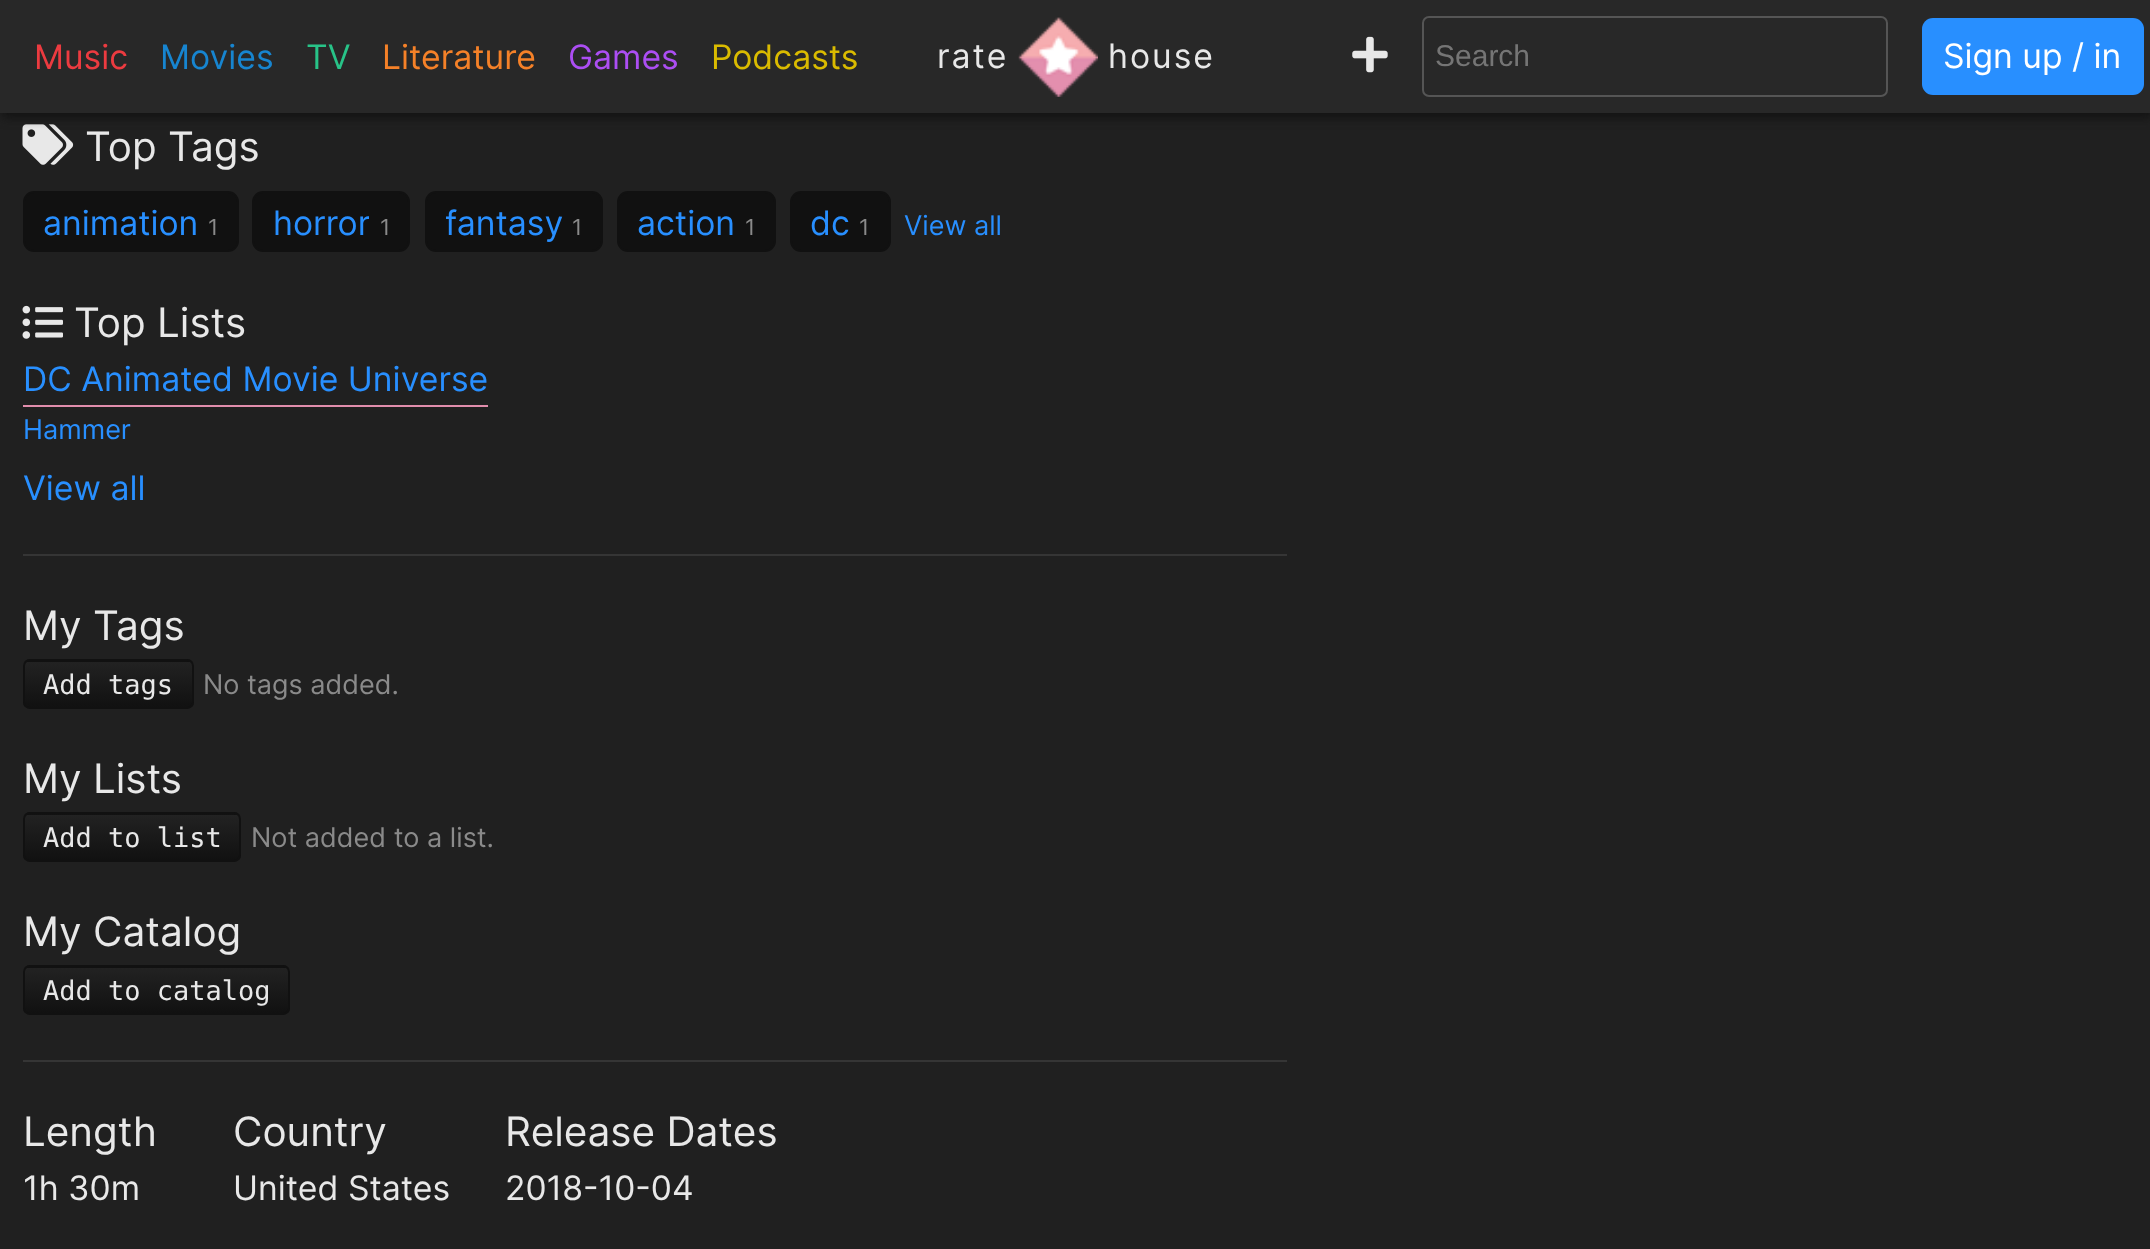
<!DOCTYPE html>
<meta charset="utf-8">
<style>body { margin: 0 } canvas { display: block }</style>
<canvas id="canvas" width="2150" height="1249"></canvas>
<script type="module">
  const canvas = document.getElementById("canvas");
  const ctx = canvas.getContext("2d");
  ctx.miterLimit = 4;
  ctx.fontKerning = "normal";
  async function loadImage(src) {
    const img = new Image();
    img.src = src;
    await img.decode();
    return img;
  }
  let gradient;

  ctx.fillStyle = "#202020";
  ctx.fillRect(0, 0, 2150, 1249);
  ctx.drawImage(await loadImage("img3.png"), 22, 124, 52, 41);
  ctx.fillStyle = "#111111";
  ctx.filter = "blur(5.5px)";
  ctx.beginPath();
  ctx.rect(2, 5, 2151, 112);
  ctx.fill();
  ctx.filter = "none";
  ctx.fillStyle = "#282828";
  ctx.fillRect(0, 0, 2150, 113);
  ctx.font = "33.75px Inter";
  ctx.fillStyle = "#ec3b40";
  ctx.fillText("Music", 34, 69);
  ctx.fillStyle = "#1785d0";
  ctx.fillText("Movies", 160, 69);
  ctx.fillStyle = "#28c388";
  ctx.fillText("TV", 306, 69);
  ctx.fillStyle = "#f58128";
  ctx.fillText("Literature", 382, 69);
  ctx.fillStyle = "#ac4ef3";
  ctx.fillText("Games", 568, 69);
  ctx.fillStyle = "#dabb00";
  ctx.fillText("Podcasts", 711, 69);
  ctx.letterSpacing = "2px";
  ctx.fillStyle = "#e8e8e8";
  ctx.fillText("rate", 937, 68);
  ctx.drawImage(await loadImage("img1.png"), 1018, 17, 80, 80);
  ctx.fillText("house", 1108, 68);
  ctx.drawImage(await loadImage("img2.png"), 1352, 36, 36, 37);
  ctx.beginPath();
  ctx.roundRect(1423, 17, 464, 79, 6);
  ctx.strokeStyle = "#555555";
  ctx.lineWidth = 2;
  ctx.stroke();
  ctx.letterSpacing = "0px";
  ctx.font = "30px Liberation Sans";
  ctx.fillStyle = "#757575";
  ctx.fillText("Search", 1435, 66);
  ctx.fillStyle = "#288fff";
  ctx.beginPath();
  ctx.roundRect(1922, 18, 222, 77, 11);
  ctx.fill();
  ctx.font = "33.75px Inter";
  ctx.fillStyle = "#ffffff";
  ctx.fillText("Sign up / in", 1943, 68);
  ctx.font = "40.5px Inter";
  ctx.fillStyle = "#e8e8e8";
  ctx.fillText("Top Tags", 85, 161);
  ctx.fillStyle = "#111111";
  ctx.beginPath();
  ctx.roundRect(24, 192, 214, 59, 10);
  ctx.fill();
  ctx.strokeStyle = "#111111";
  ctx.stroke();
  ctx.font = "33.75px Inter";
  ctx.fillStyle = "#288fff";
  ctx.fillText("animation", 43, 235);
  ctx.font = "22px Inter";
  ctx.fillStyle = "#8a8a8a";
  ctx.fillText("1", 208, 235);
  ctx.fillStyle = "#111111";
  ctx.beginPath();
  ctx.roundRect(253, 192, 156, 59, 10);
  ctx.fill();
  ctx.stroke();
  ctx.save();
  ctx.beginPath();
  ctx.rect(272, 203, 97, 40);
  ctx.clip();
  ctx.font = "33.75px Inter";
  ctx.fillStyle = "#288fff";
  ctx.fillText("horror", 273, 235);
  ctx.restore();
  ctx.fillStyle = "#8a8a8a";
  ctx.fillText("1", 380, 235);
  ctx.fillStyle = "#111111";
  ctx.beginPath();
  ctx.roundRect(426, 192, 176, 59, 10);
  ctx.fill();
  ctx.stroke();
  ctx.save();
  ctx.beginPath();
  ctx.rect(446, 203, 117, 40);
  ctx.clip();
  ctx.font = "33.75px Inter";
  ctx.fillStyle = "#288fff";
  ctx.fillText("fantasy", 445, 235);
  ctx.restore();
  ctx.fillStyle = "#8a8a8a";
  ctx.fillText("1", 572, 235);
  ctx.fillStyle = "#111111";
  ctx.beginPath();
  ctx.roundRect(618, 192, 157, 59, 10);
  ctx.fill();
  ctx.stroke();
  ctx.font = "33.75px Inter";
  ctx.fillStyle = "#288fff";
  ctx.fillText("action", 637, 235);
  ctx.font = "22px Inter";
  ctx.fillStyle = "#8a8a8a";
  ctx.fillText("1", 745, 235);
  ctx.fillStyle = "#111111";
  ctx.beginPath();
  ctx.roundRect(791, 192, 99, 59, 10);
  ctx.fill();
  ctx.stroke();
  ctx.font = "33.75px Inter";
  ctx.fillStyle = "#288fff";
  ctx.fillText("dc", 810, 235);
  ctx.font = "22px Inter";
  ctx.fillStyle = "#8a8a8a";
  ctx.fillText("1", 859, 235);
  ctx.font = "27px Inter";
  ctx.fillStyle = "#288fff";
  ctx.fillText("View all", 904, 235);
  ctx.drawImage(await loadImage("img4.png"), 22, 305, 41, 34);
  ctx.font = "40.5px Inter";
  ctx.fillStyle = "#e8e8e8";
  ctx.fillText("Top Lists", 74, 337);
  ctx.font = "33.75px Inter";
  ctx.fillStyle = "#288fff";
  ctx.fillText("DC Animated Movie Universe", 23, 391);
  ctx.fillStyle = "#e18dac";
  ctx.fillRect(23, 405, 465, 2);
  ctx.font = "27px Inter";
  ctx.fillStyle = "#288fff";
  ctx.fillText("Hammer", 23, 439);
  ctx.font = "33.75px Inter";
  ctx.fillText("View all", 23, 500);
  ctx.fillStyle = "#353535";
  ctx.fillRect(23, 554, 1264, 2);
  ctx.font = "40.5px Inter";
  ctx.fillStyle = "#e8e8e8";
  ctx.fillText("My Tags", 23, 640);
  ctx.save();
  ctx.beginPath();
  ctx.roundRect(23, 659, 171, 50, 7);
  ctx.clip();
  gradient = ctx.createLinearGradient(108, 617, 108, 662);
  gradient.addColorStop(0, "#222222");
  gradient.addColorStop(1, "#111111");
  ctx.fillStyle = gradient;
  ctx.fillRect(23, 659, 171, 3);
  gradient = ctx.createLinearGradient(108, 662, 108, 707);
  gradient.addColorStop(0, "#222222");
  gradient.addColorStop(1, "#111111");
  ctx.fillStyle = gradient;
  ctx.fillRect(23, 662, 171, 45);
  ctx.restore();
  ctx.beginPath();
  ctx.roundRect(24, 660, 169, 48, 6);
  ctx.stroke();
  ctx.font = "27px DejaVu Sans Mono";
  ctx.fillText("Add tags", 43, 694);
  ctx.font = "27px Inter";
  ctx.fillStyle = "#8a8a8a";
  ctx.fillText("No tags added.", 203, 694);
  ctx.font = "40.5px Inter";
  ctx.fillStyle = "#e8e8e8";
  ctx.fillText("My Lists", 23, 793);
  ctx.save();
  ctx.beginPath();
  ctx.roundRect(23, 812, 218, 50, 7);
  ctx.clip();
  gradient = ctx.createLinearGradient(132, 770, 132, 815);
  gradient.addColorStop(0, "#222222");
  gradient.addColorStop(1, "#111111");
  ctx.fillStyle = gradient;
  ctx.fillRect(23, 812, 218, 3);
  gradient = ctx.createLinearGradient(132, 815, 132, 860);
  gradient.addColorStop(0, "#222222");
  gradient.addColorStop(1, "#111111");
  ctx.fillStyle = gradient;
  ctx.fillRect(23, 815, 218, 45);
  ctx.restore();
  ctx.beginPath();
  ctx.roundRect(24, 813, 216, 48, 6);
  ctx.stroke();
  ctx.font = "27px DejaVu Sans Mono";
  ctx.fillText("Add to list", 43, 847);
  ctx.font = "27px Inter";
  ctx.fillStyle = "#8a8a8a";
  ctx.fillText("Not added to a list.", 251, 847);
  ctx.font = "40.5px Inter";
  ctx.fillStyle = "#e8e8e8";
  ctx.fillText("My Catalog", 23, 946);
  ctx.save();
  ctx.beginPath();
  ctx.roundRect(23, 965, 267, 50, 7);
  ctx.clip();
  gradient = ctx.createLinearGradient(156, 923, 156, 968);
  gradient.addColorStop(0, "#222222");
  gradient.addColorStop(1, "#111111");
  ctx.fillStyle = gradient;
  ctx.fillRect(23, 965, 267, 3);
  gradient = ctx.createLinearGradient(156, 968, 156, 1013);
  gradient.addColorStop(0, "#222222");
  gradient.addColorStop(1, "#111111");
  ctx.fillStyle = gradient;
  ctx.fillRect(23, 968, 267, 45);
  ctx.restore();
  ctx.beginPath();
  ctx.roundRect(24, 966, 265, 48, 6);
  ctx.stroke();
  ctx.font = "27px DejaVu Sans Mono";
  ctx.fillText("Add to catalog", 43, 1000);
  ctx.fillStyle = "#353535";
  ctx.fillRect(23, 1060, 1264, 2);
  ctx.font = "40.5px Inter";
  ctx.fillStyle = "#e8e8e8";
  ctx.fillText("Length", 23, 1146);
  ctx.font = "33.75px Inter";
  ctx.fillText("1h 30m", 23, 1200);
  ctx.font = "40.5px Inter";
  ctx.fillText("Country", 233, 1146);
  ctx.font = "33.75px Inter";
  ctx.fillText("United States", 233, 1200);
  ctx.font = "40.5px Inter";
  ctx.fillText("Release Dates", 505, 1146);
  ctx.font = "33.75px Inter";
  ctx.fillText("2018-10-04", 505, 1200);
</script>
